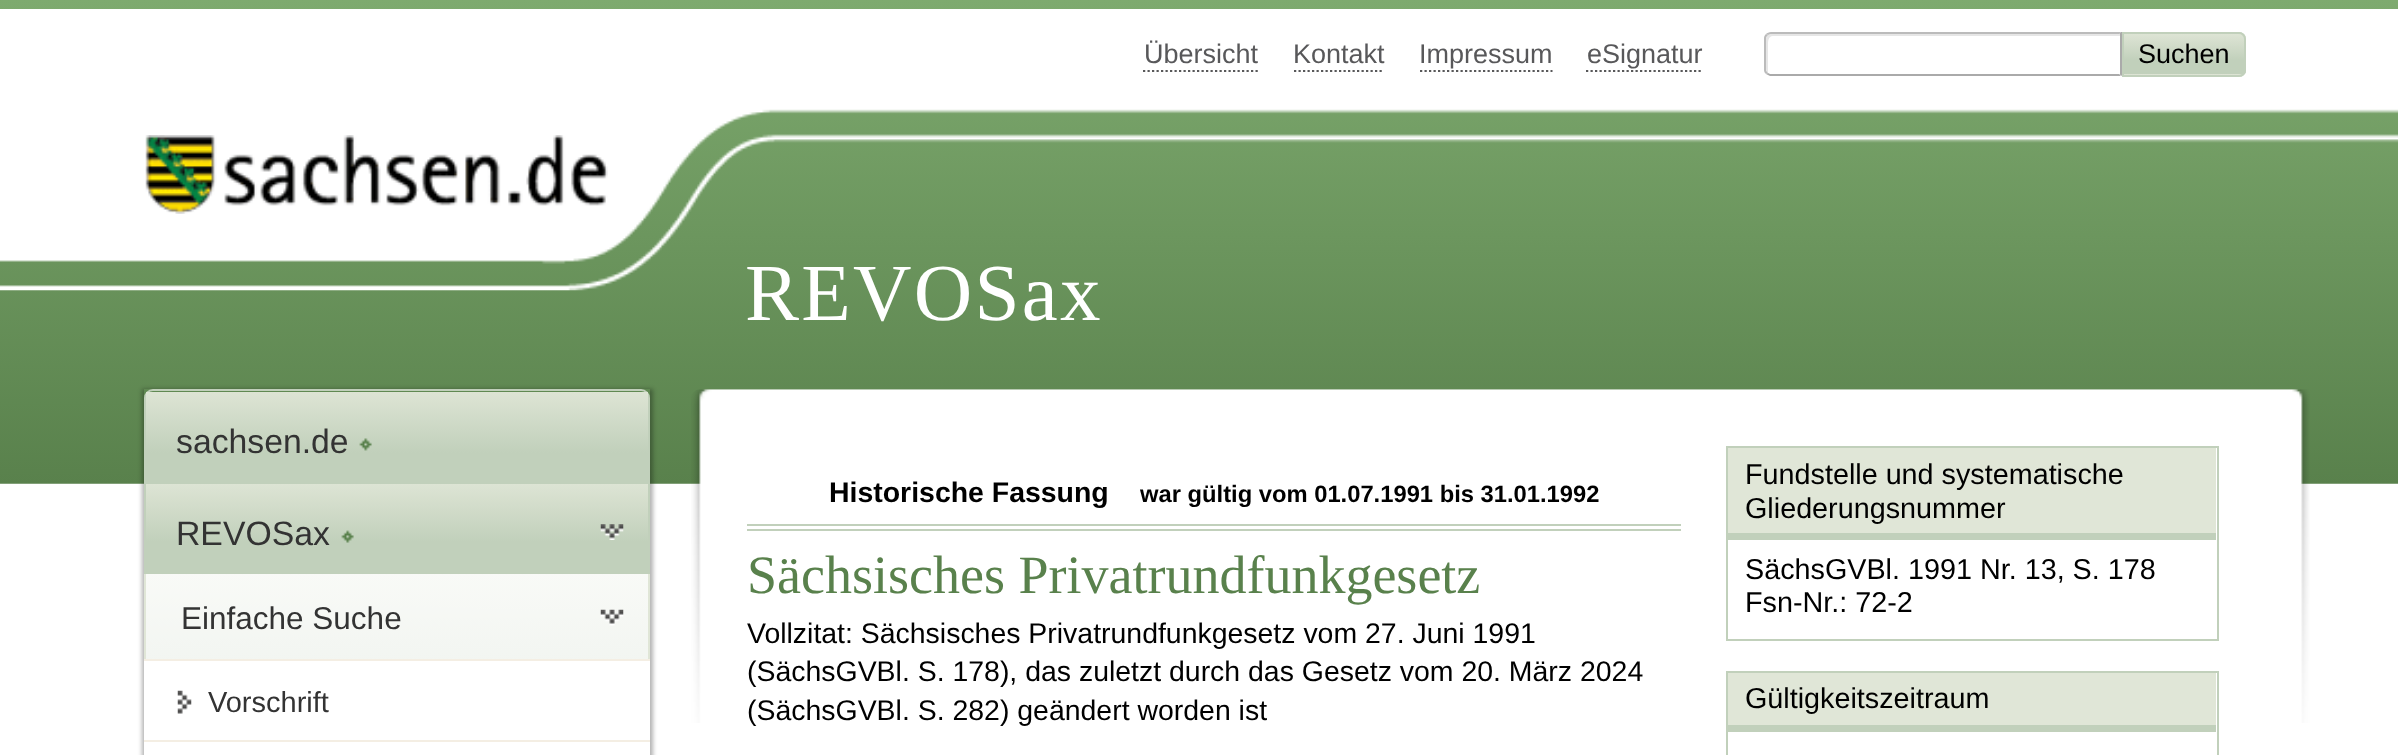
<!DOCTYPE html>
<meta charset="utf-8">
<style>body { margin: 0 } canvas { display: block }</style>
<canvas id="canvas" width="2398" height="755"></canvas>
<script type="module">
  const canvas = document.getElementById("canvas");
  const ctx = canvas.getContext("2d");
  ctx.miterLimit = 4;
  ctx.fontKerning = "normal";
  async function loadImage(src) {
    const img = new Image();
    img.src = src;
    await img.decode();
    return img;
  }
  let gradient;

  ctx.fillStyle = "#ffffff";
  ctx.fillRect(0, 0, 2398, 755);
  ctx.drawImage(await loadImage("img1.png"), 0, 0, 2398, 484);
  ctx.font = "27px Liberation Sans";
  ctx.fillStyle = "#58585a";
  ctx.fillText("Übersicht", 1144, 63);
  ctx.beginPath();
  ctx.moveTo(1143, 71);
  ctx.lineTo(1258, 71);
  ctx.strokeStyle = "#58585a";
  ctx.lineWidth = 2.2;
  ctx.setLineDash([2.25, 2.25]);
  ctx.stroke();
  ctx.fillText("Kontakt", 1293, 63);
  ctx.beginPath();
  ctx.moveTo(1294, 71);
  ctx.lineTo(1384, 71);
  ctx.stroke();
  ctx.fillText("Impressum", 1419, 63);
  ctx.beginPath();
  ctx.moveTo(1420, 71);
  ctx.lineTo(1552.5, 71);
  ctx.stroke();
  ctx.fillText("eSignatur", 1587, 63);
  ctx.beginPath();
  ctx.moveTo(1586, 71);
  ctx.lineTo(1703, 71);
  ctx.stroke();
  ctx.fillStyle = "#e6e6e6";
  ctx.beginPath();
  ctx.moveTo(1773, 36);
  ctx.lineTo(2120, 36);
  ctx.lineTo(2120, 34);
  ctx.lineTo(1771, 34);
  ctx.bezierCurveTo(1768, 34, 1766, 36, 1766, 39);
  ctx.lineTo(1766, 69);
  ctx.bezierCurveTo(1766, 71, 1767, 72, 1768, 73);
  ctx.lineTo(1768, 45);
  ctx.bezierCurveTo(1768, 42, 1768, 36, 1773, 36);
  ctx.closePath();
  ctx.fill();
  ctx.fillStyle = "#bbbbbb";
  ctx.beginPath();
  ctx.moveTo(1771, 32);
  ctx.bezierCurveTo(1769, 32, 1767, 33, 1766, 34);
  ctx.lineTo(1768, 35);
  ctx.lineTo(1770, 34);
  ctx.lineTo(2119, 34);
  ctx.lineTo(2121, 32);
  ctx.closePath();
  ctx.fill();
  ctx.fillStyle = "#aaaaaa";
  ctx.beginPath();
  ctx.moveTo(2122, 76);
  ctx.lineTo(2119, 74);
  ctx.lineTo(2120, 74);
  ctx.lineTo(2120, 34);
  ctx.lineTo(2119, 34);
  ctx.lineTo(2121, 32);
  ctx.lineTo(2122, 32);
  ctx.closePath();
  ctx.fill();
  ctx.beginPath();
  ctx.moveTo(2121, 76);
  ctx.lineTo(1770, 76);
  ctx.lineTo(1766, 74);
  ctx.lineTo(1768, 73);
  ctx.lineTo(1770, 74);
  ctx.lineTo(2119, 74);
  ctx.closePath();
  ctx.fill();
  ctx.fillStyle = "#bbbbbb";
  ctx.beginPath();
  ctx.moveTo(1764, 38);
  ctx.lineTo(1764, 70);
  ctx.bezierCurveTo(1764, 72, 1765, 73, 1766, 74);
  ctx.lineTo(1768, 73);
  ctx.bezierCurveTo(1767, 72, 1766, 71, 1766, 70);
  ctx.lineTo(1766, 38);
  ctx.bezierCurveTo(1766, 37, 1767, 36, 1768, 35);
  ctx.lineTo(1766, 34);
  ctx.bezierCurveTo(1765, 35, 1764, 36, 1764, 38);
  ctx.closePath();
  ctx.fill();
  ctx.fillStyle = "#c1d0bb";
  ctx.beginPath();
  ctx.roundRect(2122, 32, 124, 45, [0, 7, 7, 0]);
  ctx.fill();
  ctx.save();
  ctx.beginPath();
  ctx.roundRect(2122, 32, 124, 45, [0, 7, 7, 0]);
  ctx.clip();
  gradient = ctx.createLinearGradient(2184, 34, 2184, 74);
  gradient.addColorStop(0, "rgba(224, 230, 215, 0.9)");
  gradient.addColorStop(0.66, "rgba(193, 208, 187, 0.97)");
  gradient.addColorStop(1, "#c1d0bb");
  ctx.fillStyle = gradient;
  ctx.fillRect(2124, 34, 122, 40);
  gradient = ctx.createLinearGradient(2184, 74, 2184, 115);
  gradient.addColorStop(0, "rgba(224, 230, 215, 0.9)");
  gradient.addColorStop(0.66, "rgba(193, 208, 187, 0.97)");
  gradient.addColorStop(1, "#c1d0bb");
  ctx.fillStyle = gradient;
  ctx.fillRect(2122, 74, 124, 3);
  ctx.restore();
  ctx.beginPath();
  ctx.roundRect(2123, 33, 122, 43, [0, 6, 6, 0]);
  ctx.strokeStyle = "#c1d0bb";
  ctx.lineWidth = 2;
  ctx.setLineDash([]);
  ctx.stroke();
  ctx.fillStyle = "#000000";
  ctx.fillText("Suchen", 2138, 63);
  ctx.drawImage(await loadImage("img2.png"), 145, 135, 463, 79);
  ctx.letterSpacing = "2.25px";
  ctx.font = "81px Liberation Serif";
  ctx.fillStyle = "#ffffff";
  ctx.fillText("REVOSax", 745, 320);
  ctx.save();
  ctx.beginPath();
  ctx.moveTo(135, 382);
  ctx.lineTo(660, 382);
  ctx.lineTo(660, 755);
  ctx.lineTo(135, 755);
  ctx.closePath();
  ctx.moveTo(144, 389);
  ctx.lineTo(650, 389);
  ctx.lineTo(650, 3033);
  ctx.lineTo(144, 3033);
  ctx.closePath();
  ctx.clip("evenodd");
  ctx.fillStyle = "rgba(0, 0, 0, 0.3)";
  ctx.filter = "blur(2px)";
  ctx.beginPath();
  ctx.rect(142, 389, 511, 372);
  ctx.fill();
  ctx.filter = "none";
  ctx.restore();
  ctx.beginPath();
  ctx.roundRect(145, 390, 504, 183, [8, 8, 0, 0]);
  ctx.stroke();
  gradient = ctx.createLinearGradient(397, 392, 397, 484);
  gradient.addColorStop(0, "#dde4d4");
  gradient.addColorStop(0.66, "#c1d0bb");
  gradient.addColorStop(1, "#c1d0bb");
  ctx.fillStyle = gradient;
  ctx.fillRect(146, 392, 502, 92);
  ctx.letterSpacing = "0px";
  ctx.font = "33.75px Liberation Sans";
  ctx.fillStyle = "#333333";
  ctx.fillText("sachsen.de", 176, 453);
  ctx.drawImage(await loadImage("img3.png"), 359, 438, 13, 13);
  gradient = ctx.createLinearGradient(397, 484, 397, 572);
  gradient.addColorStop(0, "#dde4d4");
  gradient.addColorStop(0.66, "#c1d0bb");
  gradient.addColorStop(1, "#c1d0bb");
  ctx.fillStyle = gradient;
  ctx.fillRect(146, 484, 502, 88);
  ctx.drawImage(await loadImage("img4.png"), 600, 524, 24, 16);
  ctx.fillStyle = "#333333";
  ctx.fillText("REVOSax", 176, 545);
  ctx.drawImage(await loadImage("img5.png"), 341, 530, 13, 13);
  ctx.drawImage(await loadImage("img6.png"), 146, 574, 502, 85);
  ctx.fillStyle = "#e0e6d7";
  ctx.fillRect(648, 574, 2, 85);
  ctx.fillRect(144, 574, 2, 85);
  ctx.font = "31.5px Liberation Sans";
  ctx.fillStyle = "#333333";
  ctx.fillText("Einfache Suche", 181, 629);
  ctx.fillStyle = "#f4eee3";
  ctx.fillRect(144, 659, 506, 2);
  ctx.drawImage(await loadImage("img7.png"), 177, 690, 15, 24);
  ctx.font = "29px Liberation Sans";
  ctx.fillStyle = "#333333";
  ctx.fillText("Vorschrift", 208, 712);
  ctx.fillStyle = "#f4eee3";
  ctx.fillRect(144, 740, 506, 2);
  ctx.drawImage(await loadImage("img8.png"), 691, 389, 1619, 334);
  ctx.fillStyle = "#c1d0bb";
  ctx.fillRect(747, 524, 934, 2);
  ctx.fillRect(747, 529, 934, 2);
  ctx.font = "bold 28.45px Liberation Sans";
  ctx.fillStyle = "#000000";
  ctx.fillText("Historische Fassung", 829, 502);
  ctx.font = "bold 23.75px Liberation Sans";
  ctx.fillText("war gültig vom 01.07.1991 bis 31.01.1992", 1140, 502);
  ctx.font = "54px Liberation Serif";
  ctx.fillStyle = "#59814c";
  ctx.fillText("Sächsisches Privatrundfunkgesetz", 747, 593);
  ctx.font = "28.45px Liberation Sans";
  ctx.fillStyle = "#000000";
  ctx.fillText("Vollzitat: Sächsisches Privatrundfunkgesetz vom 27. Juni 1991", 747, 643);
  ctx.fillText("(SächsGVBl. S. 178), das zuletzt durch das Gesetz vom 20. März 2024", 747, 681);
  ctx.fillText("(SächsGVBl. S. 282) geändert worden ist", 747, 720);
  ctx.strokeRect(1727, 447, 491, 193);
  ctx.fillStyle = "#e0e6d7";
  ctx.fillRect(1728, 448, 488, 85);
  ctx.fillStyle = "#c1d0bb";
  ctx.fillRect(1728, 533, 488, 7);
  ctx.font = "28.75px Liberation Sans";
  ctx.fillStyle = "#000000";
  ctx.fillText("Fundstelle und systematische", 1745, 484);
  ctx.fillText("Gliederungsnummer", 1745, 518);
  ctx.fillText("SächsGVBl. 1991 Nr. 13, S. 178", 1745, 579);
  ctx.fillText("Fsn-Nr.: 72-2", 1745, 612);
  ctx.strokeRect(1727, 672, 491, 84);
  ctx.fillStyle = "#e0e6d7";
  ctx.fillRect(1728, 673, 488, 52);
  ctx.fillStyle = "#c1d0bb";
  ctx.fillRect(1728, 725, 488, 7);
  ctx.fillStyle = "#000000";
  ctx.fillText("Gültigkeitszeitraum", 1745, 708);
</script>
